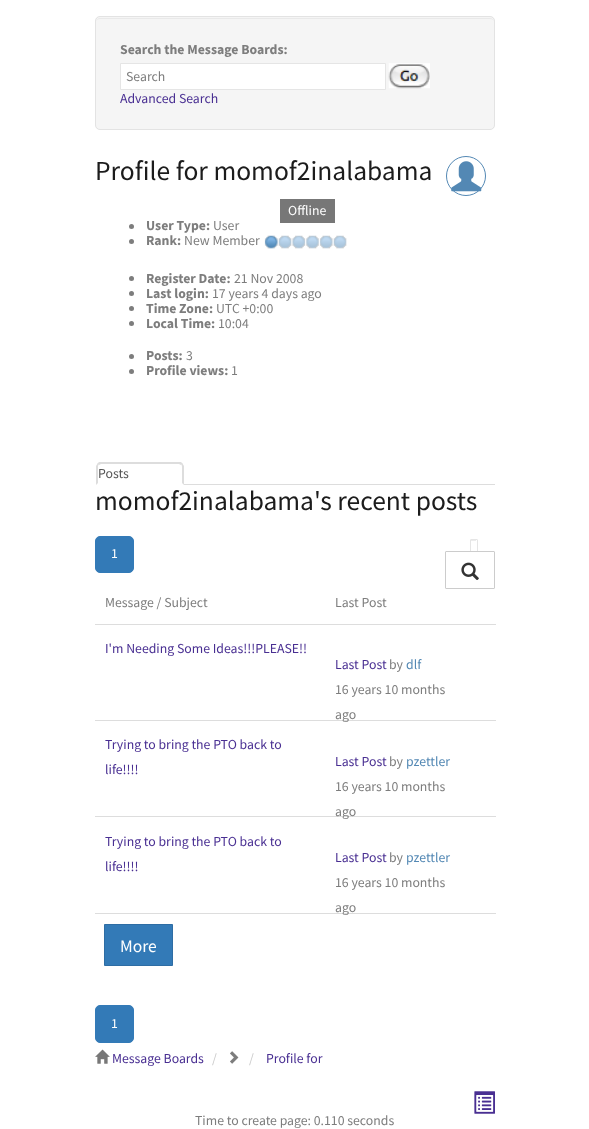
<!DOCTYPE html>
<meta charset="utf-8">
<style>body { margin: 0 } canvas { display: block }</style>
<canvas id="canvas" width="589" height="1129"></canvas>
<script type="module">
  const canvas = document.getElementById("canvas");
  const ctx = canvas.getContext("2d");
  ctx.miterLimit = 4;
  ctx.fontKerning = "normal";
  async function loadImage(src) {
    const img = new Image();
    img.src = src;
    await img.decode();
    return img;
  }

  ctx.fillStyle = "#ffffff";
  ctx.fillRect(0, 0, 589, 1129);
  ctx.fillStyle = "#f5f5f5";
  ctx.beginPath();
  ctx.roundRect(95, 16, 400, 114, 5);
  ctx.fill();
  ctx.fillStyle = "#e9e9e9";
  ctx.beginPath();
  ctx.moveTo(100, 19);
  ctx.lineTo(490, 19);
  ctx.bezierCurveTo(492, 19, 494, 20, 494, 22);
  ctx.bezierCurveTo(494, 20, 492, 18, 490, 18);
  ctx.lineTo(100, 18);
  ctx.bezierCurveTo(98, 18, 96, 20, 96, 22);
  ctx.bezierCurveTo(96, 20, 98, 19, 100, 19);
  ctx.closePath();
  ctx.fill();
  ctx.beginPath();
  ctx.roundRect(95.5, 16.5, 399, 113, 4.5);
  ctx.strokeStyle = "#e3e3e3";
  ctx.stroke();
  ctx.font = "bold 13.75px Source Sans Pro";
  ctx.fillStyle = "#7d7d7d";
  ctx.fillText("Search the Message Boards:", 120, 54);
  ctx.fillStyle = "#ffffff";
  ctx.beginPath();
  ctx.rect(120.5, 63.5, 265, 26);
  ctx.fill();
  ctx.strokeStyle = "#e5e5e5";
  ctx.stroke();
  ctx.font = "13.75px Source Sans Pro";
  ctx.fillStyle = "#7d7d7d";
  ctx.fillText("Search", 126, 81);
  ctx.drawImage(await loadImage("img1.png"), 388, 63, 42, 26);
  ctx.fillStyle = "#492f92";
  ctx.fillText("Advanced Search", 120, 103);
  ctx.font = "27.5px Source Sans Pro";
  ctx.fillStyle = "#1c1c1c";
  ctx.fillText("Profile for momof2inalabama", 95, 180);
  ctx.beginPath();
  ctx.arc(466, 176, 19.5, 0, Math.PI * 2);
  ctx.strokeStyle = "#5388b4";
  ctx.stroke();
  ctx.drawImage(await loadImage("img2.png"), 451, 161, 31, 31);
  ctx.fillStyle = "#777777";
  ctx.fillRect(280, 199, 55, 24);
  ctx.font = "13.75px Source Sans Pro";
  ctx.fillStyle = "#ffffff";
  ctx.fillText("Offline", 288, 215);
  ctx.fillStyle = "#7d7d7d";
  ctx.beginPath();
  ctx.arc(131.5, 226.5, 2.5, 0, Math.PI * 2);
  ctx.fill();
  ctx.font = "bold 13.75px Source Sans Pro";
  ctx.fillText("User Type:", 146, 230);
  ctx.font = "13.75px Source Sans Pro";
  ctx.fillText("User", 213, 230);
  ctx.beginPath();
  ctx.arc(131.5, 241.5, 2.5, 0, Math.PI * 2);
  ctx.fill();
  ctx.font = "bold 13.75px Source Sans Pro";
  ctx.fillText("Rank:", 146, 245);
  ctx.font = "13.75px Source Sans Pro";
  ctx.fillText("New Member", 184, 245);
  ctx.drawImage(await loadImage("img3.png"), 264, 235, 83, 14);
  ctx.beginPath();
  ctx.arc(131.5, 278.5, 2.5, 0, Math.PI * 2);
  ctx.fill();
  ctx.font = "bold 13.75px Source Sans Pro";
  ctx.fillText("Register Date:", 146, 283);
  ctx.font = "13.75px Source Sans Pro";
  ctx.fillText("21 Nov 2008", 234, 283);
  ctx.beginPath();
  ctx.arc(131.5, 293.5, 2.5, 0, Math.PI * 2);
  ctx.fill();
  ctx.font = "bold 13.75px Source Sans Pro";
  ctx.fillText("Last login:", 146, 298);
  ctx.font = "13.75px Source Sans Pro";
  ctx.fillText("17 years 4 days ago", 212, 298);
  ctx.beginPath();
  ctx.arc(131.5, 308.5, 2.5, 0, Math.PI * 2);
  ctx.fill();
  ctx.font = "bold 13.75px Source Sans Pro";
  ctx.fillText("Time Zone:", 146, 313);
  ctx.font = "13.75px Source Sans Pro";
  ctx.fillText("UTC +0:00", 216, 313);
  ctx.beginPath();
  ctx.arc(131.5, 323.5, 2.5, 0, Math.PI * 2);
  ctx.fill();
  ctx.font = "bold 13.75px Source Sans Pro";
  ctx.fillText("Local Time:", 146, 328);
  ctx.font = "13.75px Source Sans Pro";
  ctx.fillText("10:04", 218, 328);
  ctx.beginPath();
  ctx.arc(131.5, 356.5, 2.5, 0, Math.PI * 2);
  ctx.fill();
  ctx.font = "bold 13.75px Source Sans Pro";
  ctx.fillText("Posts:", 146, 360);
  ctx.font = "13.75px Source Sans Pro";
  ctx.fillText("3", 186, 360);
  ctx.beginPath();
  ctx.arc(131.5, 371.5, 2.5, 0, Math.PI * 2);
  ctx.fill();
  ctx.font = "bold 13.75px Source Sans Pro";
  ctx.fillText("Profile views:", 146, 375);
  ctx.font = "13.75px Source Sans Pro";
  ctx.fillText("1", 231, 375);
  ctx.fillStyle = "#dddddd";
  ctx.fillRect(184, 484, 311, 1);
  ctx.beginPath();
  ctx.moveTo(101, 464);
  ctx.lineTo(99, 465);
  ctx.lineTo(97, 464);
  ctx.lineTo(99, 462);
  ctx.lineTo(181, 462);
  ctx.lineTo(183, 464);
  ctx.lineTo(181, 465);
  ctx.lineTo(179, 464);
  ctx.closePath();
  ctx.fill();
  ctx.beginPath();
  ctx.moveTo(184, 466);
  ctx.lineTo(184, 485);
  ctx.lineTo(182, 483);
  ctx.lineTo(182, 468);
  ctx.bezierCurveTo(182, 466.5, 182, 465.5, 181.5, 465);
  ctx.lineTo(182.5, 463.5);
  ctx.closePath();
  ctx.fill();
  ctx.beginPath();
  ctx.moveTo(96, 485);
  ctx.lineTo(96, 466);
  ctx.lineTo(97.5, 463.5);
  ctx.lineTo(98.5, 465);
  ctx.bezierCurveTo(98, 465.5, 98, 466.5, 98, 468);
  ctx.lineTo(98, 483);
  ctx.closePath();
  ctx.fill();
  ctx.fillStyle = "#555555";
  ctx.fillText("Posts", 98, 478);
  ctx.font = "27.5px Source Sans Pro";
  ctx.fillStyle = "#1c1c1c";
  ctx.fillText("momof2inalabama's recent posts", 95, 510);
  ctx.fillStyle = "#337ab7";
  ctx.beginPath();
  ctx.roundRect(95.5, 536.5, 38, 36, 4.5);
  ctx.fill();
  ctx.strokeStyle = "#337ab7";
  ctx.stroke();
  ctx.font = "13.75px Source Sans Pro";
  ctx.fillStyle = "#ffffff";
  ctx.fillText("1", 111, 558);
  ctx.fillStyle = "#ececec";
  ctx.fillRect(471, 540, 5, 1);
  ctx.beginPath();
  ctx.roundRect(470.5, 539.5, 7, 36, 0.5);
  ctx.strokeStyle = "#e5e5e5";
  ctx.stroke();
  ctx.fillStyle = "#ffffff";
  ctx.beginPath();
  ctx.roundRect(445.5, 551.5, 49, 37, 0.5);
  ctx.fill();
  ctx.strokeStyle = "#cccccc";
  ctx.stroke();
  ctx.drawImage(await loadImage("img4.png"), 461, 562, 18, 18);
  ctx.fillStyle = "#7d7d7d";
  ctx.fillText("Message / Subject", 105, 607);
  ctx.fillText("Last Post", 335, 607);
  ctx.fillStyle = "#492f92";
  ctx.fillText("I'm Needing Some Ideas!!!PLEASE!!", 105, 653);
  ctx.fillStyle = "#dddddd";
  ctx.fillRect(95, 624, 401, 1);
  ctx.fillStyle = "#492f92";
  ctx.fillText("Last Post", 335, 669);
  ctx.fillStyle = "#7d7d7d";
  ctx.fillText("by", 389, 669);
  ctx.fillStyle = "#5388b4";
  ctx.fillText("dlf", 406, 669);
  ctx.fillStyle = "#7d7d7d";
  ctx.fillText("16 years 10 months", 335, 694);
  ctx.fillStyle = "#dddddd";
  ctx.fillRect(95, 720, 401, 1);
  ctx.fillStyle = "#7d7d7d";
  ctx.fillText("ago", 335, 719);
  ctx.fillStyle = "#492f92";
  ctx.fillText("Trying to bring the PTO back to", 105, 749);
  ctx.fillText("life!!!!", 105, 774);
  ctx.fillText("Last Post", 335, 766);
  ctx.fillStyle = "#7d7d7d";
  ctx.fillText("by", 389, 766);
  ctx.fillStyle = "#5388b4";
  ctx.fillText("pzettler", 406, 766);
  ctx.fillStyle = "#7d7d7d";
  ctx.fillText("16 years 10 months", 335, 791);
  ctx.fillStyle = "#dddddd";
  ctx.fillRect(95, 816, 401, 1);
  ctx.fillStyle = "#7d7d7d";
  ctx.fillText("ago", 335, 816);
  ctx.fillStyle = "#492f92";
  ctx.fillText("Trying to bring the PTO back to", 105, 846);
  ctx.fillText("life!!!!", 105, 871);
  ctx.fillText("Last Post", 335, 862);
  ctx.fillStyle = "#7d7d7d";
  ctx.fillText("by", 389, 862);
  ctx.fillStyle = "#5388b4";
  ctx.fillText("pzettler", 406, 862);
  ctx.fillStyle = "#7d7d7d";
  ctx.fillText("16 years 10 months", 335, 887);
  ctx.fillStyle = "#dddddd";
  ctx.fillRect(95, 913, 401, 1);
  ctx.fillStyle = "#7d7d7d";
  ctx.fillText("ago", 335, 912);
  ctx.fillStyle = "#337ab7";
  ctx.beginPath();
  ctx.rect(104.5, 924.5, 68, 41);
  ctx.fill();
  ctx.strokeStyle = "#2e6da4";
  ctx.stroke();
  ctx.font = "17.5px Source Sans Pro";
  ctx.fillStyle = "#ffffff";
  ctx.fillText("More", 120, 952);
  ctx.fillStyle = "#337ab7";
  ctx.beginPath();
  ctx.roundRect(95.5, 1005.5, 38, 37, 4.5);
  ctx.fill();
  ctx.strokeStyle = "#337ab7";
  ctx.stroke();
  ctx.font = "13.75px Source Sans Pro";
  ctx.fillStyle = "#ffffff";
  ctx.fillText("1", 111, 1028);
  ctx.drawImage(await loadImage("img5.png"), 95, 1049, 15, 15);
  ctx.fillStyle = "#492f92";
  ctx.fillText("Message Boards", 112, 1063);
  ctx.fillStyle = "#cccccc";
  ctx.fillText("/", 212, 1063);
  ctx.drawImage(await loadImage("img6.png"), 230, 1051, 9, 13);
  ctx.fillText("/", 249, 1063);
  ctx.fillStyle = "#492f92";
  ctx.fillText("Profile for", 266, 1063);
  ctx.drawImage(await loadImage("img7.png"), 474, 1091, 21, 23);
  ctx.fillStyle = "#7d7d7d";
  ctx.fillText("Time to create page: 0.110 seconds", 195, 1125);
</script>
